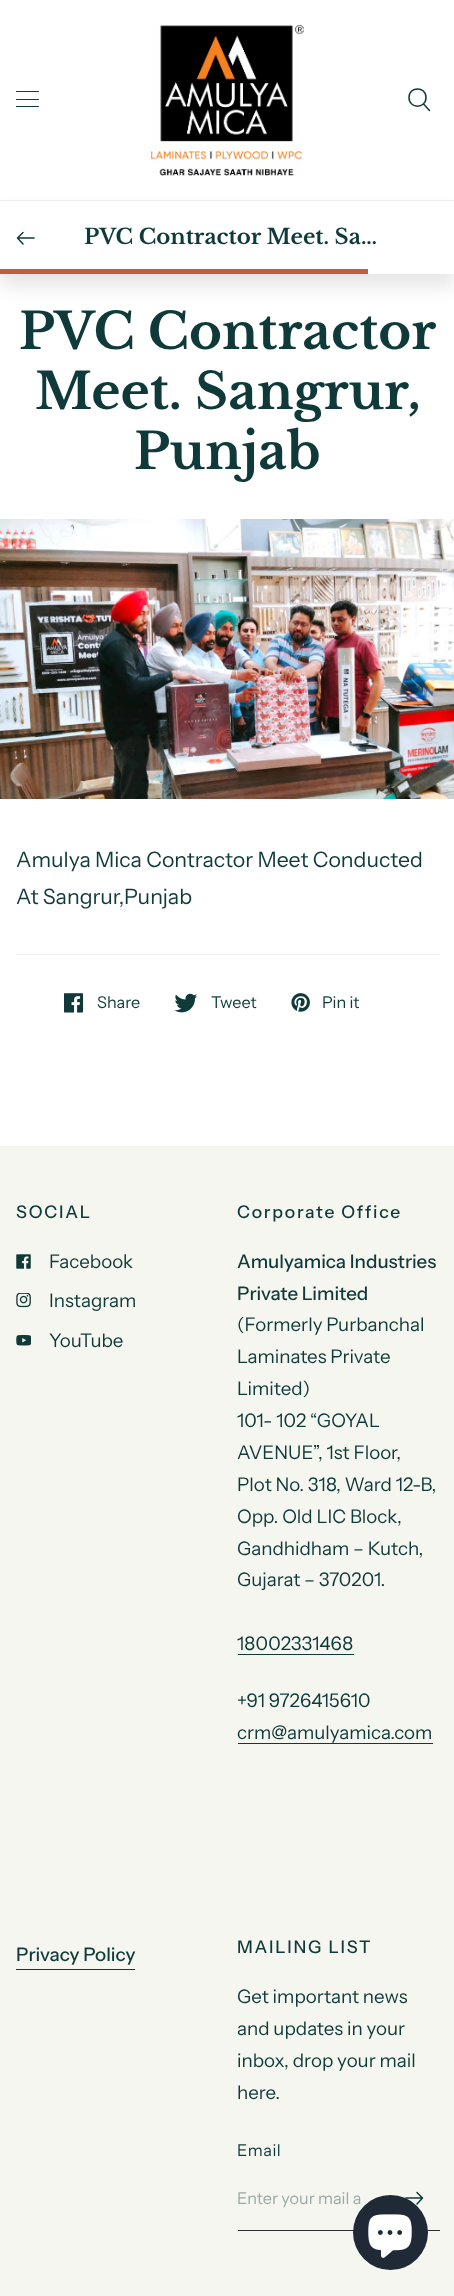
<!DOCTYPE html>
<meta charset="utf-8">
<style>body { margin: 0 } canvas { display: block }</style>
<canvas id="canvas" width="454" height="2296"></canvas>
<script type="module">
  const canvas = document.getElementById("canvas");
  const ctx = canvas.getContext("2d");
  ctx.miterLimit = 4;
  ctx.fontKerning = "normal";
  async function loadImage(src) {
    const img = new Image();
    img.src = src;
    await img.decode();
    return img;
  }

  ctx.fillStyle = "#ffffff";
  ctx.fillRect(0, 0, 454, 2296);
  ctx.fillStyle = "rgba(0, 0, 0, 0.1)";
  ctx.filter = "blur(9.5px)";
  ctx.beginPath();
  ctx.rect(0, 214, 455, 72);
  ctx.fill();
  ctx.filter = "none";
  ctx.fillStyle = "#eeeeee";
  ctx.fillRect(0, 200, 454, 1);
  ctx.fillStyle = "#103a3a";
  ctx.beginPath();
  ctx.roundRect(16, 91, 23, 1, 0.5);
  ctx.fill();
  ctx.beginPath();
  ctx.roundRect(16, 99, 23, 1, 0.5);
  ctx.fill();
  ctx.beginPath();
  ctx.roundRect(16, 106, 23, 1, 0.5);
  ctx.fill();
  ctx.drawImage(await loadImage("img1.png"), 151, 25, 153, 151);
  ctx.beginPath();
  ctx.moveTo(424, 104.5);
  ctx.lineTo(429.5, 110.5);
  ctx.moveTo(426, 97.5);
  ctx.bezierCurveTo(426, 109, 409, 109, 409, 97.5);
  ctx.bezierCurveTo(409, 86, 426, 86, 426, 97.5);
  ctx.closePath();
  ctx.strokeStyle = "#103a3a";
  ctx.lineWidth = 1.5;
  ctx.lineCap = "round";
  ctx.lineJoin = "round";
  ctx.stroke();
  ctx.fillStyle = "#ffffff";
  ctx.fillRect(0, 202, 454, 72);
  ctx.beginPath();
  ctx.moveTo(34, 238);
  ctx.lineTo(19, 238);
  ctx.moveTo(23, 232.5);
  ctx.lineTo(17.5, 238);
  ctx.lineTo(23, 244);
  ctx.stroke();
  ctx.font = "bold 21.25px Libre Baskerville";
  ctx.fillStyle = "#103a3a";
  ctx.fillText("PVC Contractor Meet. Sa…", 84, 244);
  ctx.fillStyle = "#c25b41";
  ctx.fillRect(0, 269, 368, 5);
  ctx.font = "bold 50px Libre Baskerville";
  ctx.fillStyle = "#103a3a";
  ctx.fillText("PVC Contractor", 19, 349);
  ctx.fillText("Meet. Sangrur,", 35, 409);
  ctx.fillText("Punjab", 134, 469);
  ctx.drawImage(await loadImage("img2.png"), 0, 519, 454, 280);
  ctx.font = "21.25px Instrument Sans";
  ctx.fillText("Amulya Mica Contractor Meet Conducted", 16, 867);
  ctx.fillText("At Sangrur,Punjab", 16, 904);
  ctx.fillStyle = "#eeeeee";
  ctx.fillRect(16, 954, 424, 1);
  ctx.drawImage(await loadImage("img3.png"), 64, 993, 20, 20);
  ctx.font = "16.25px Instrument Sans";
  ctx.fillStyle = "#103a3a";
  ctx.fillText("Share", 97, 1008);
  ctx.drawImage(await loadImage("img4.png"), 174, 993, 24, 20);
  ctx.fillText("Tweet", 211, 1008);
  ctx.drawImage(await loadImage("img5.png"), 291, 993, 19, 19);
  ctx.fillText("Pin it", 322, 1008);
  ctx.fillStyle = "#f6f6f0";
  ctx.fillRect(0, 1146, 454, 1150);
  ctx.letterSpacing = "1.75px";
  ctx.font = "500 17.5px Instrument Sans";
  ctx.fillStyle = "#103a3a";
  ctx.fillText("SOCIAL", 16, 1218);
  ctx.drawImage(await loadImage("img6.png"), 16, 1254, 15, 15);
  ctx.letterSpacing = "0px";
  ctx.font = "18.75px Instrument Sans";
  ctx.fillText("Facebook", 49, 1268);
  ctx.drawImage(await loadImage("img7.png"), 16, 1293, 15, 15);
  ctx.fillText("Instagram", 49, 1307);
  ctx.drawImage(await loadImage("img8.png"), 16, 1335, 15, 11);
  ctx.fillText("YouTube", 49, 1347);
  ctx.letterSpacing = "1.75px";
  ctx.font = "500 17.5px Instrument Sans";
  ctx.fillText("Corporate Office", 237, 1218);
  ctx.letterSpacing = "0px";
  ctx.font = "500 18.75px Instrument Sans";
  ctx.fillText("Amulyamica Industries", 237, 1268);
  ctx.fillText("Private Limited", 237, 1300);
  ctx.font = "18.75px Instrument Sans";
  ctx.fillText("(Formerly Purbanchal", 237, 1331);
  ctx.fillText("Laminates Private", 237, 1363);
  ctx.fillText("Limited)", 237, 1395);
  ctx.fillText("101- 102 “GOYAL", 237, 1427);
  ctx.fillText("AVENUE”, 1st Floor,", 237, 1459);
  ctx.fillText("Plot No. 318, Ward 12-B,", 237, 1491);
  ctx.fillText("Opp. Old LIC Block,", 237, 1523);
  ctx.fillText("Gandhidham – Kutch,", 237, 1555);
  ctx.fillText("Gujarat – 370201.", 237, 1586);
  ctx.fillText("18002331468", 237, 1650);
  ctx.fillRect(238, 1654, 116, 1);
  ctx.fillText("+91 9726415610", 237, 1707);
  ctx.fillText("crm@amulyamica.com", 237, 1739);
  ctx.fillRect(238, 1743, 195, 1);
  ctx.font = "500 18.75px Instrument Sans";
  ctx.fillText("Privacy Policy", 16, 1961);
  ctx.fillRect(16, 1969, 119, 1);
  ctx.letterSpacing = "1.75px";
  ctx.font = "500 17.5px Instrument Sans";
  ctx.fillText("MAILING LIST", 237, 1953);
  ctx.letterSpacing = "0px";
  ctx.font = "18.75px Instrument Sans";
  ctx.fillText("Get important news", 237, 2003);
  ctx.fillText("and updates in your", 237, 2035);
  ctx.fillText("inbox, drop your mail", 237, 2067);
  ctx.fillText("here.", 237, 2099);
  ctx.letterSpacing = "0.5px";
  ctx.font = "16.25px Instrument Sans";
  ctx.fillText("Email", 237, 2156);
  ctx.fillStyle = "#2b2b2b";
  ctx.fillRect(238, 2230, 202, 1);
  ctx.letterSpacing = "0px";
  ctx.fillStyle = "#9aaba7";
  ctx.fillText("Enter your mail a", 237, 2204);
  ctx.beginPath();
  ctx.moveTo(406, 2198);
  ctx.lineTo(421, 2198);
  ctx.moveTo(417, 2192.5);
  ctx.lineTo(422.5, 2198);
  ctx.lineTo(417, 2204);
  ctx.stroke();
  ctx.fillStyle = "#202a36";
  ctx.beginPath();
  ctx.arc(390.5, 2232.5, 37.5, 0, Math.PI * 2);
  ctx.fill();
  ctx.drawImage(await loadImage("img9.png"), 368, 2214, 44, 44);
</script>
